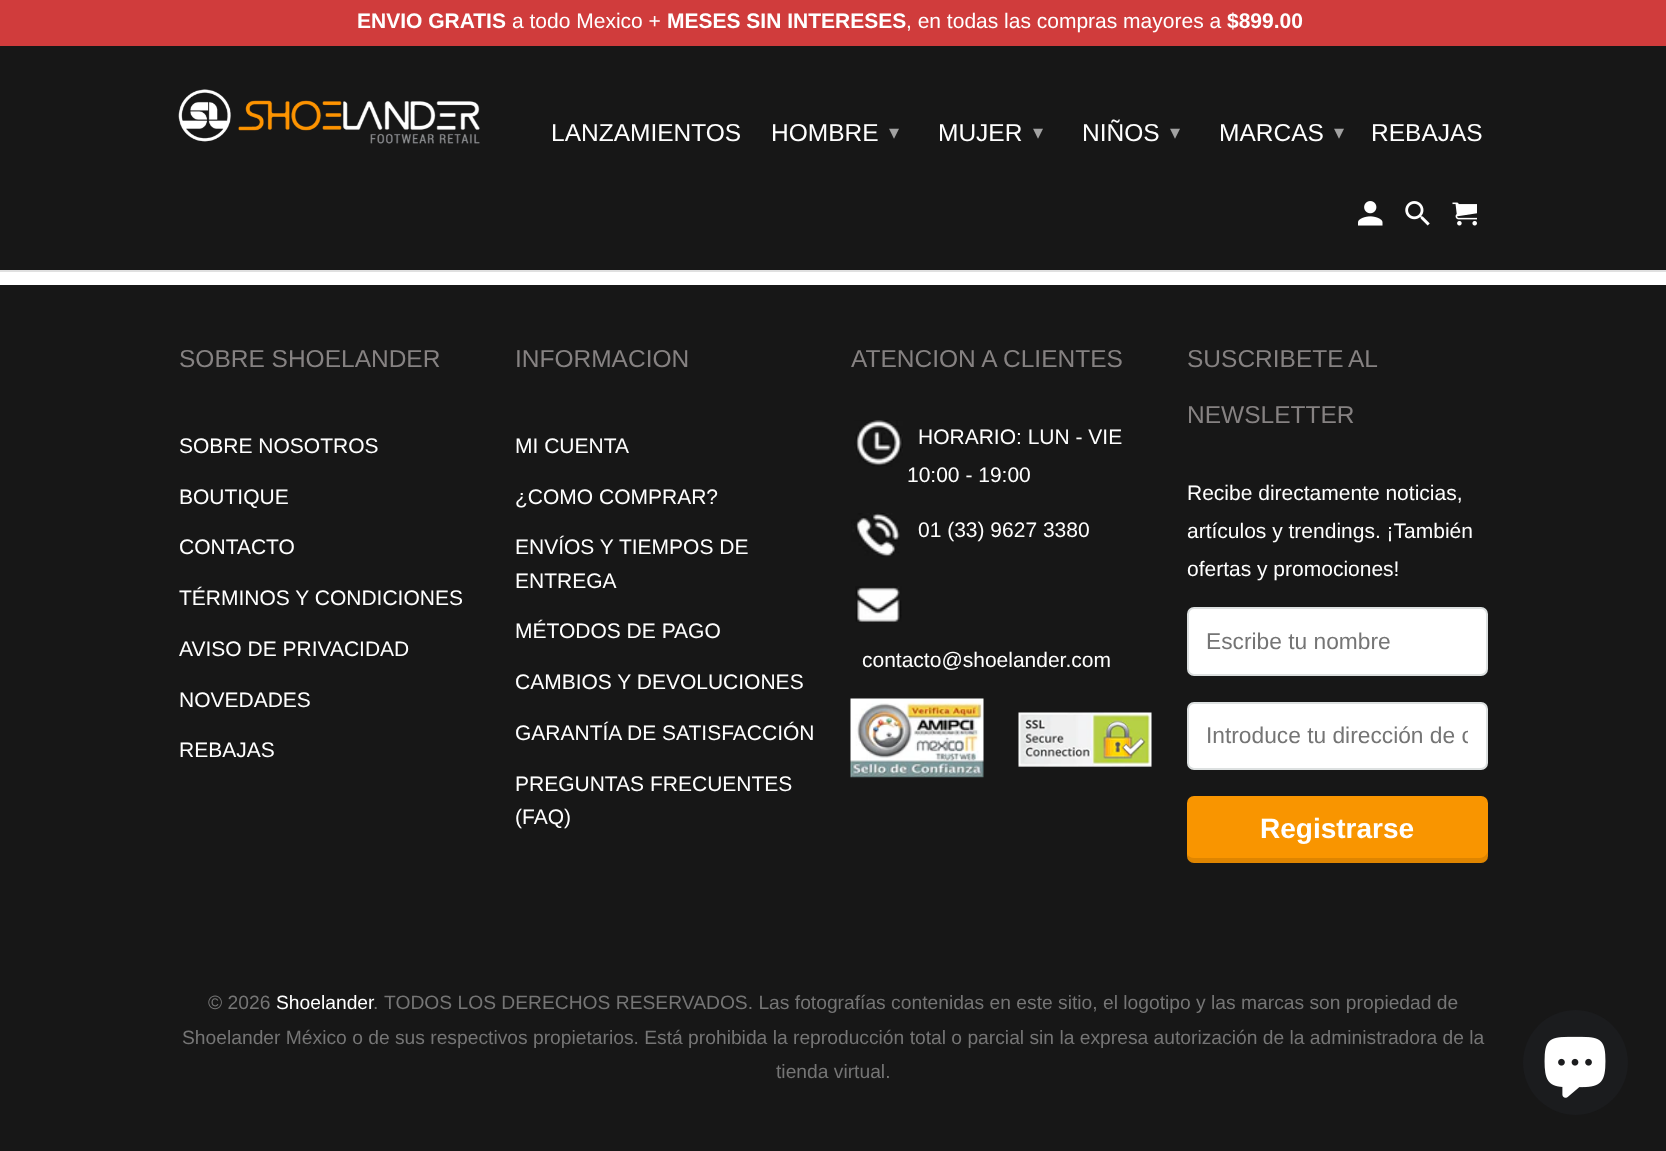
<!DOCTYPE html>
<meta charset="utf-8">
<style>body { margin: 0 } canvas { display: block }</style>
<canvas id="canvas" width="1666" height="1151"></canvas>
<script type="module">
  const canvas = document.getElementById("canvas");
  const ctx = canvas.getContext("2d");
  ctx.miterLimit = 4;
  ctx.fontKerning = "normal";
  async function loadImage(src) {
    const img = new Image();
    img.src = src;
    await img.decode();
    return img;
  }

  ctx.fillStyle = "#ffffff";
  ctx.fillRect(0, 0, 1666, 1151);
  ctx.fillStyle = "#171717";
  ctx.fillRect(0, 46, 1666, 224);
  ctx.fillStyle = "#e0e0e0";
  ctx.fillRect(0, 270, 1666, 2);
  ctx.fillStyle = "#d03c3c";
  ctx.fillRect(0, 0, 1666, 46);
  ctx.font = "bold 21px Liberation Sans";
  ctx.fillStyle = "#ffffff";
  ctx.fillText("ENVIO GRATIS", 357, 28);
  ctx.font = "21px Liberation Sans";
  ctx.fillText("a todo Mexico +", 512, 28);
  ctx.font = "bold 21px Liberation Sans";
  ctx.fillText("MESES SIN INTERESES", 667, 28);
  ctx.font = "21px Liberation Sans";
  ctx.fillText(", en todas las compras mayores a", 906, 28);
  ctx.font = "bold 21px Liberation Sans";
  ctx.fillText("$899.00", 1227, 28);
  ctx.drawImage(await loadImage("img1.png"), 178, 89, 302, 55);
  ctx.font = "24.5px Liberation Sans";
  ctx.fillText("LANZAMIENTOS", 551, 141);
  ctx.fillText("HOMBRE", 771, 141);
  ctx.font = "20px DejaVu Sans";
  ctx.fillStyle = "#a2a2a2";
  ctx.fillText("▾", 889, 139);
  ctx.font = "24.5px Liberation Sans";
  ctx.fillStyle = "#ffffff";
  ctx.fillText("MUJER", 938, 141);
  ctx.font = "20px DejaVu Sans";
  ctx.fillStyle = "#a2a2a2";
  ctx.fillText("▾", 1033, 139);
  ctx.font = "24.5px Liberation Sans";
  ctx.fillStyle = "#ffffff";
  ctx.fillText("NIÑOS", 1082, 141);
  ctx.font = "20px DejaVu Sans";
  ctx.fillStyle = "#a2a2a2";
  ctx.fillText("▾", 1170, 139);
  ctx.font = "24.5px Liberation Sans";
  ctx.fillStyle = "#ffffff";
  ctx.fillText("MARCAS", 1219, 141);
  ctx.font = "20px DejaVu Sans";
  ctx.fillStyle = "#a2a2a2";
  ctx.fillText("▾", 1334, 139);
  ctx.font = "24.5px Liberation Sans";
  ctx.fillStyle = "#ffffff";
  ctx.fillText("REBAJAS", 1371, 141);
  ctx.drawImage(await loadImage("img2.png"), 1358, 201, 25, 25);
  ctx.drawImage(await loadImage("img3.png"), 1405, 201, 25, 25);
  ctx.drawImage(await loadImage("img4.png"), 1452, 202, 25, 24);
  ctx.fillStyle = "#171717";
  ctx.fillRect(0, 285, 1666, 866);
  ctx.fillStyle = "#868282";
  ctx.fillText("SOBRE SHOELANDER", 179, 367);
  ctx.font = "21px Liberation Sans";
  ctx.fillStyle = "#ffffff";
  ctx.fillText("SOBRE NOSOTROS", 179, 453);
  ctx.fillText("BOUTIQUE", 179, 504);
  ctx.fillText("CONTACTO", 179, 554);
  ctx.fillText("TÉRMINOS Y CONDICIONES", 179, 605);
  ctx.fillText("AVISO DE PRIVACIDAD", 179, 656);
  ctx.fillText("NOVEDADES", 179, 707);
  ctx.fillText("REBAJAS", 179, 757);
  ctx.font = "24.5px Liberation Sans";
  ctx.fillStyle = "#868282";
  ctx.fillText("INFORMACION", 515, 367);
  ctx.font = "21px Liberation Sans";
  ctx.fillStyle = "#ffffff";
  ctx.fillText("MI CUENTA", 515, 453);
  ctx.fillText("¿COMO COMPRAR?", 515, 504);
  ctx.fillText("ENVÍOS Y TIEMPOS DE", 515, 554);
  ctx.fillText("ENTREGA", 515, 588);
  ctx.fillText("MÉTODOS DE PAGO", 515, 638);
  ctx.fillText("CAMBIOS Y DEVOLUCIONES", 515, 689);
  ctx.fillText("GARANTÍA DE SATISFACCIÓN", 515, 740);
  ctx.fillText("PREGUNTAS FRECUENTES", 515, 791);
  ctx.fillText("(FAQ)", 515, 824);
  ctx.font = "24.5px Liberation Sans";
  ctx.fillStyle = "#868282";
  ctx.fillText("ATENCION A CLIENTES", 851, 367);
  ctx.drawImage(await loadImage("img5.png"), 854, 420, 49, 47);
  ctx.font = "21px Liberation Sans";
  ctx.fillStyle = "#ffffff";
  ctx.fillText("HORARIO: LUN - VIE", 918, 444);
  ctx.fillText("10:00 - 19:00", 907, 482);
  ctx.drawImage(await loadImage("img6.png"), 851, 513, 49, 44);
  ctx.fillText("01 (33) 9627 3380", 918, 537);
  ctx.drawImage(await loadImage("img7.png"), 855, 586, 47, 37);
  ctx.fillText("contacto@shoelander.com", 862, 667);
  ctx.drawImage(await loadImage("img8.png"), 850, 698, 134, 80);
  ctx.drawImage(await loadImage("img9.png"), 1018, 712, 134, 55);
  ctx.wordSpacing = "-1px";
  ctx.font = "24.5px Liberation Sans";
  ctx.fillStyle = "#868282";
  ctx.fillText("SUSCRIBETE AL", 1187, 367);
  ctx.wordSpacing = "0px";
  ctx.fillText("NEWSLETTER", 1187, 423);
  ctx.font = "21px Liberation Sans";
  ctx.fillStyle = "#ffffff";
  ctx.fillText("Recibe directamente noticias,", 1187, 500);
  ctx.fillText("artículos y trendings. ¡También", 1187, 538);
  ctx.fillText("ofertas y promociones!", 1187, 576);
  ctx.beginPath();
  ctx.roundRect(1188, 608, 299, 67, 6);
  ctx.fill();
  ctx.strokeStyle = "#dce0e0";
  ctx.lineWidth = 2;
  ctx.stroke();
  ctx.font = "22.75px Liberation Sans";
  ctx.fillStyle = "#757575";
  ctx.fillText("Escribe tu nombre", 1206, 649);
  ctx.fillStyle = "#ffffff";
  ctx.beginPath();
  ctx.roundRect(1188, 703, 299, 66, 6);
  ctx.fill();
  ctx.stroke();
  ctx.save();
  ctx.beginPath();
  ctx.rect(1206, 723, 262, 26);
  ctx.clip();
  ctx.fillStyle = "#757575";
  ctx.fillText("Introduce tu dirección de c", 1206, 743);
  ctx.restore();
  ctx.fillStyle = "#f99500";
  ctx.beginPath();
  ctx.roundRect(1187, 796, 301, 67, 7);
  ctx.fill();
  ctx.fillStyle = "rgba(0, 0, 0, 0.1)";
  ctx.beginPath();
  ctx.moveTo(1187, 854);
  ctx.lineTo(1187, 856);
  ctx.bezierCurveTo(1187, 860, 1190, 863, 1194, 863);
  ctx.lineTo(1481, 863);
  ctx.bezierCurveTo(1485, 863, 1488, 860, 1488, 856);
  ctx.lineTo(1488, 850);
  ctx.bezierCurveTo(1488, 854, 1484, 858, 1480, 858);
  ctx.lineTo(1194, 858);
  ctx.bezierCurveTo(1191, 858, 1188, 856, 1187, 854);
  ctx.closePath();
  ctx.fill();
  ctx.font = "bold 28px Liberation Sans";
  ctx.fillStyle = "#ffffff";
  ctx.fillText("Registrarse", 1260, 838);
  ctx.font = "19.25px Liberation Sans";
  ctx.fillStyle = "#757575";
  ctx.fillText("© 2026", 208, 1009);
  ctx.fillStyle = "#ffffff";
  ctx.fillText("Shoelander", 276, 1009);
  ctx.fillStyle = "#757575";
  ctx.fillText(".", 373, 1009);
  ctx.fillText("TODOS LOS DERECHOS RESERVADOS. Las fotografías contenidas en este sitio, el logotipo y las marcas son propiedad de", 384, 1009);
  ctx.fillText("Shoelander México o de sus respectivos propietarios. Está prohibida la reproducción total o parcial sin la expresa autorización de la administradora de la", 182, 1044);
  ctx.fillText("tienda virtual.", 776, 1078);
  ctx.fillStyle = "#1b1c1e";
  ctx.beginPath();
  ctx.arc(1575.5, 1062.5, 52.5, 0, Math.PI * 2);
  ctx.fill();
  ctx.drawImage(await loadImage("img10.png"), 1544, 1036, 62, 62);
</script>
